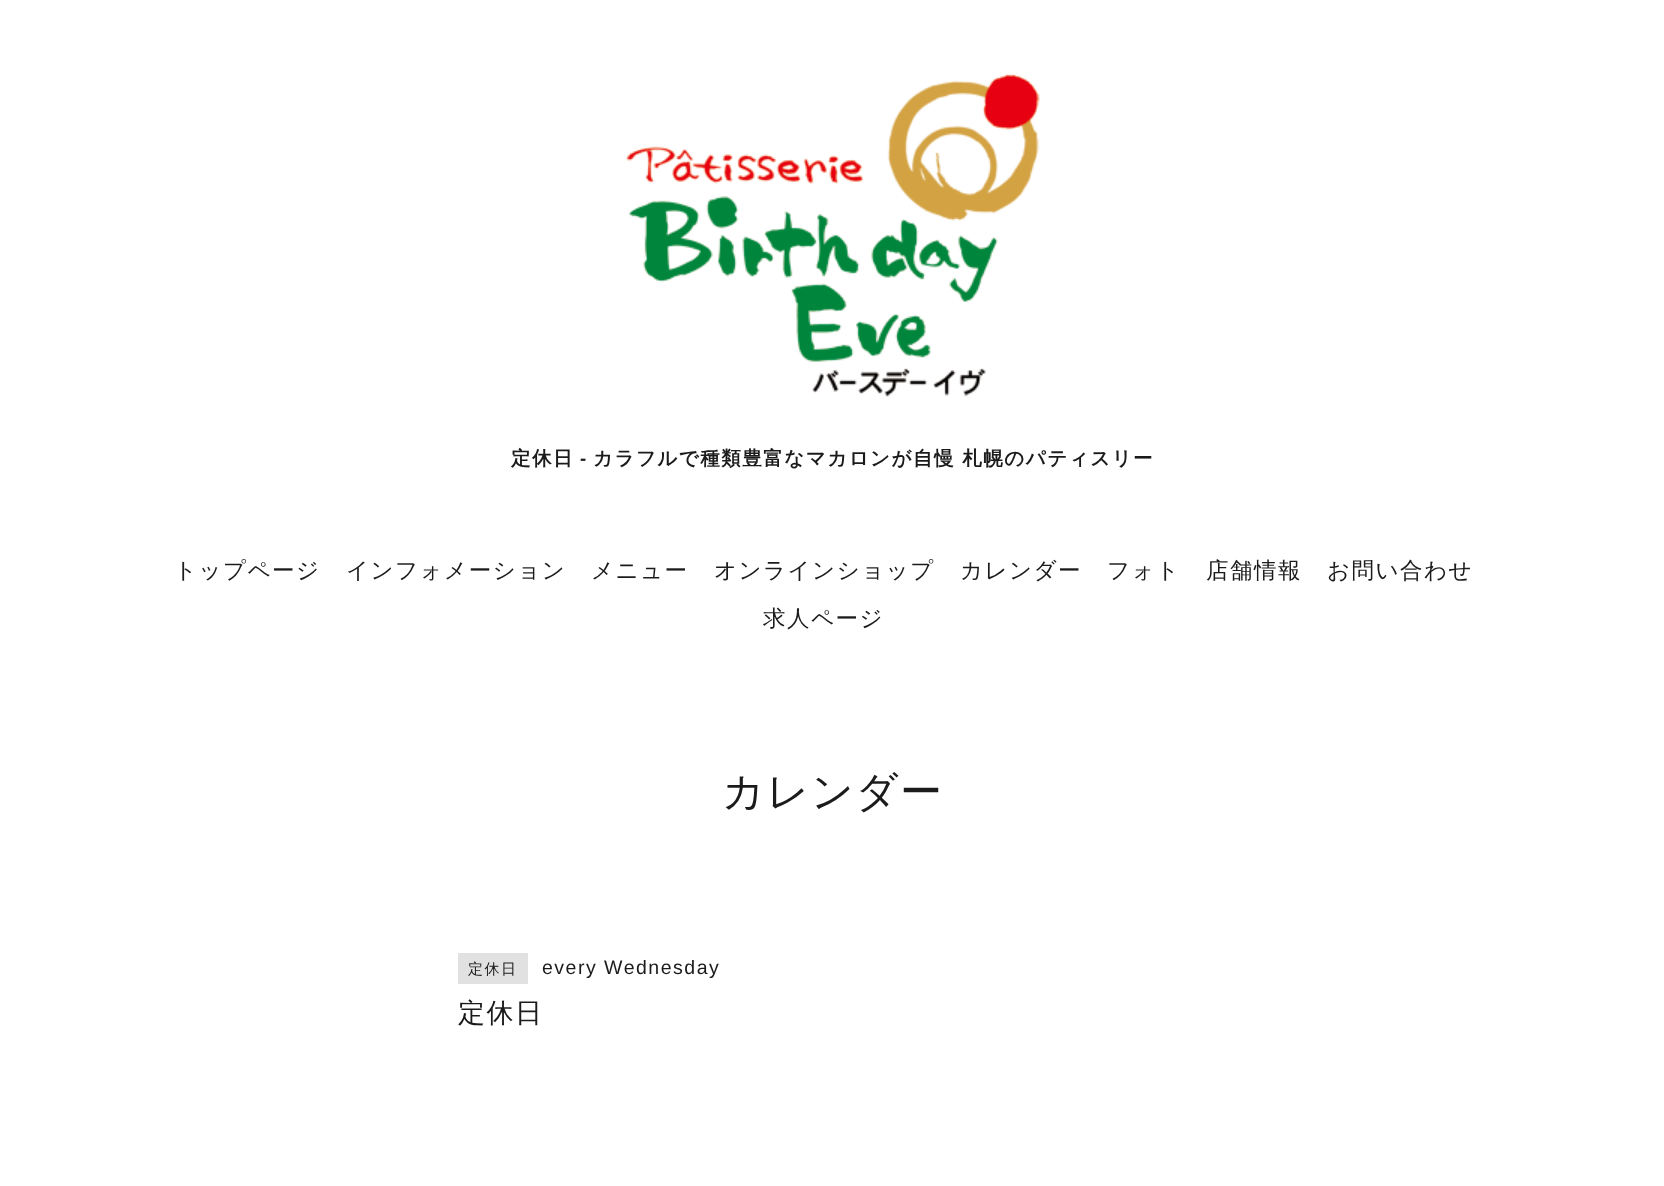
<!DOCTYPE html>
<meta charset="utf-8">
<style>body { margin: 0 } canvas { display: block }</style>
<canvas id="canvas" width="1664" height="1186"></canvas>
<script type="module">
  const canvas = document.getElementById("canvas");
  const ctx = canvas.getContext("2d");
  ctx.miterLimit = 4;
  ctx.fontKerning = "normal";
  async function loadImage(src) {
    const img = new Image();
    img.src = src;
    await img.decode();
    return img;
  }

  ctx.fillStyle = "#ffffff";
  ctx.fillRect(0, 0, 1664, 1186);
  ctx.drawImage(await loadImage("img1.png"), 626, 74, 414, 323);
  ctx.letterSpacing = "1.5px";
  ctx.font = "bold 19.5px WenQuanYi Zen Hei";
  ctx.fillStyle = "#1b1b1b";
  ctx.fillText("定休日", 511, 465);
  ctx.font = "bold 19.5px Open Sans Condensed";
  ctx.fillText("-", 580, 465);
  ctx.font = "bold 19.5px WenQuanYi Zen Hei";
  ctx.fillText("カラフルで種類豊富なマカロンが自慢 札幌のパティスリー", 593, 465);
  ctx.font = "500 22.5px WenQuanYi Zen Hei";
  ctx.fillText("トップページ", 174, 578);
  ctx.fillText("インフォメーション", 346, 578);
  ctx.fillText("メニュー", 591, 578);
  ctx.fillText("オンラインショップ", 714, 578);
  ctx.fillText("カレンダー", 960, 578);
  ctx.fillText("フォト", 1107, 578);
  ctx.fillText("店舗情報", 1206, 578);
  ctx.fillText("お問い合わせ", 1327, 578);
  ctx.fillText("求人ページ", 763, 626);
  ctx.font = "500 42px WenQuanYi Zen Hei";
  ctx.fillText("カレンダー", 722, 806);
  ctx.fillStyle = "#e1e1e1";
  ctx.fillRect(458, 953, 70, 31);
  ctx.font = "500 15px WenQuanYi Zen Hei";
  ctx.fillStyle = "#1b1b1b";
  ctx.fillText("定休日", 468, 974);
  ctx.font = "19.5px Liberation Sans";
  ctx.fillText("every Wednesday", 542, 974);
  ctx.font = "500 27px WenQuanYi Zen Hei";
  ctx.fillText("定休日", 458, 1022);
</script>
